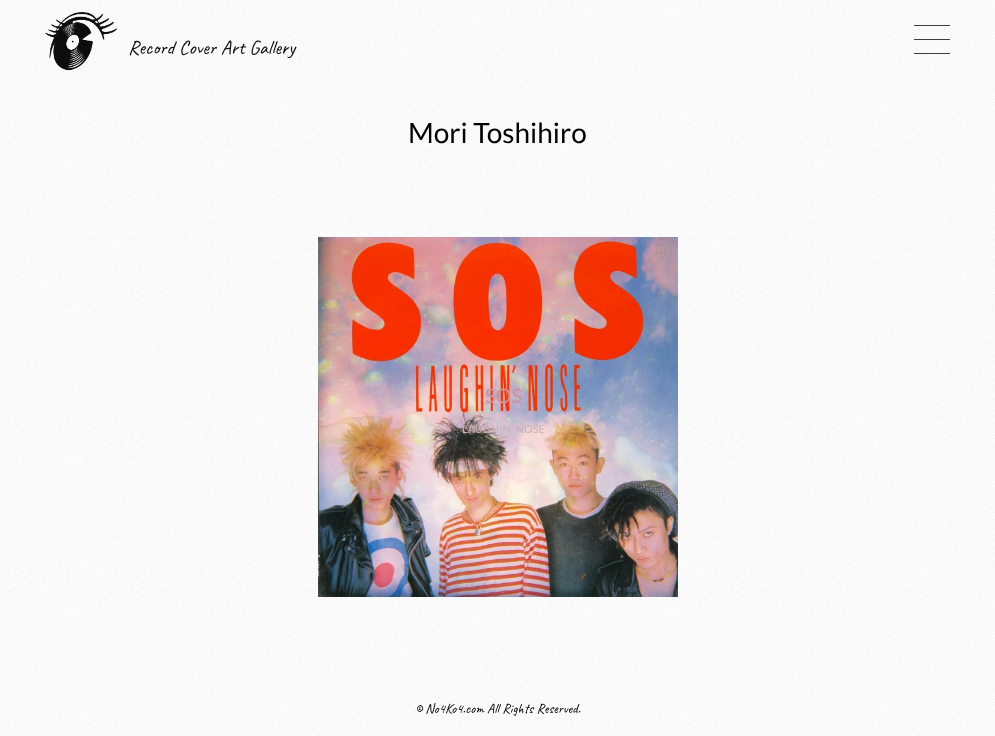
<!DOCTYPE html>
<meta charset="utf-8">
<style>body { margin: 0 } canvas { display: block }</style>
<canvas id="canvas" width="995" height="736"></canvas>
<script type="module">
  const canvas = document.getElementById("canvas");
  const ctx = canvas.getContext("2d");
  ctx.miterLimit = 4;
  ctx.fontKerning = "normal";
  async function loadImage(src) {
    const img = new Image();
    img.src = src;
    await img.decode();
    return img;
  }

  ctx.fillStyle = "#ffffff";
  ctx.fillRect(0, 0, 995, 736);
  ctx.drawImage(await loadImage("img1.png"), 0, 0, 995, 736);
  ctx.drawImage(await loadImage("img2.png"), 0, 11, 14, 8);
  ctx.drawImage(await loadImage("img3.png"), 45, 12, 72, 59);
  ctx.font = "20px Caveat";
  ctx.fillStyle = "#0c0c0c";
  ctx.fillText("Record Cover Art Gallery", 128, 54);
  ctx.fillStyle = "rgba(51, 51, 51, 0.95)";
  ctx.fillRect(914, 25, 36, 1);
  ctx.fillRect(914, 39, 36, 1);
  ctx.fillRect(914, 53, 36, 1);
  ctx.font = "28px Lato";
  ctx.fillStyle = "#000000";
  ctx.fillText("Mori Toshihiro", 408, 143);
  ctx.drawImage(await loadImage("img4.png"), 318, 237, 360, 360);
  ctx.font = "20px Lato";
  ctx.fillStyle = "#cf9397";
  ctx.fillText("SOS", 485, 403);
  ctx.font = "11px Lato";
  ctx.fillStyle = "#c6b1b8";
  ctx.fillText("LAUGHIN' NOSE", 462, 433);
  ctx.font = "14px Caveat";
  ctx.fillStyle = "#000000";
  ctx.fillText("© No4Ko4.com All Rights Reserved.", 415, 713);
</script>
